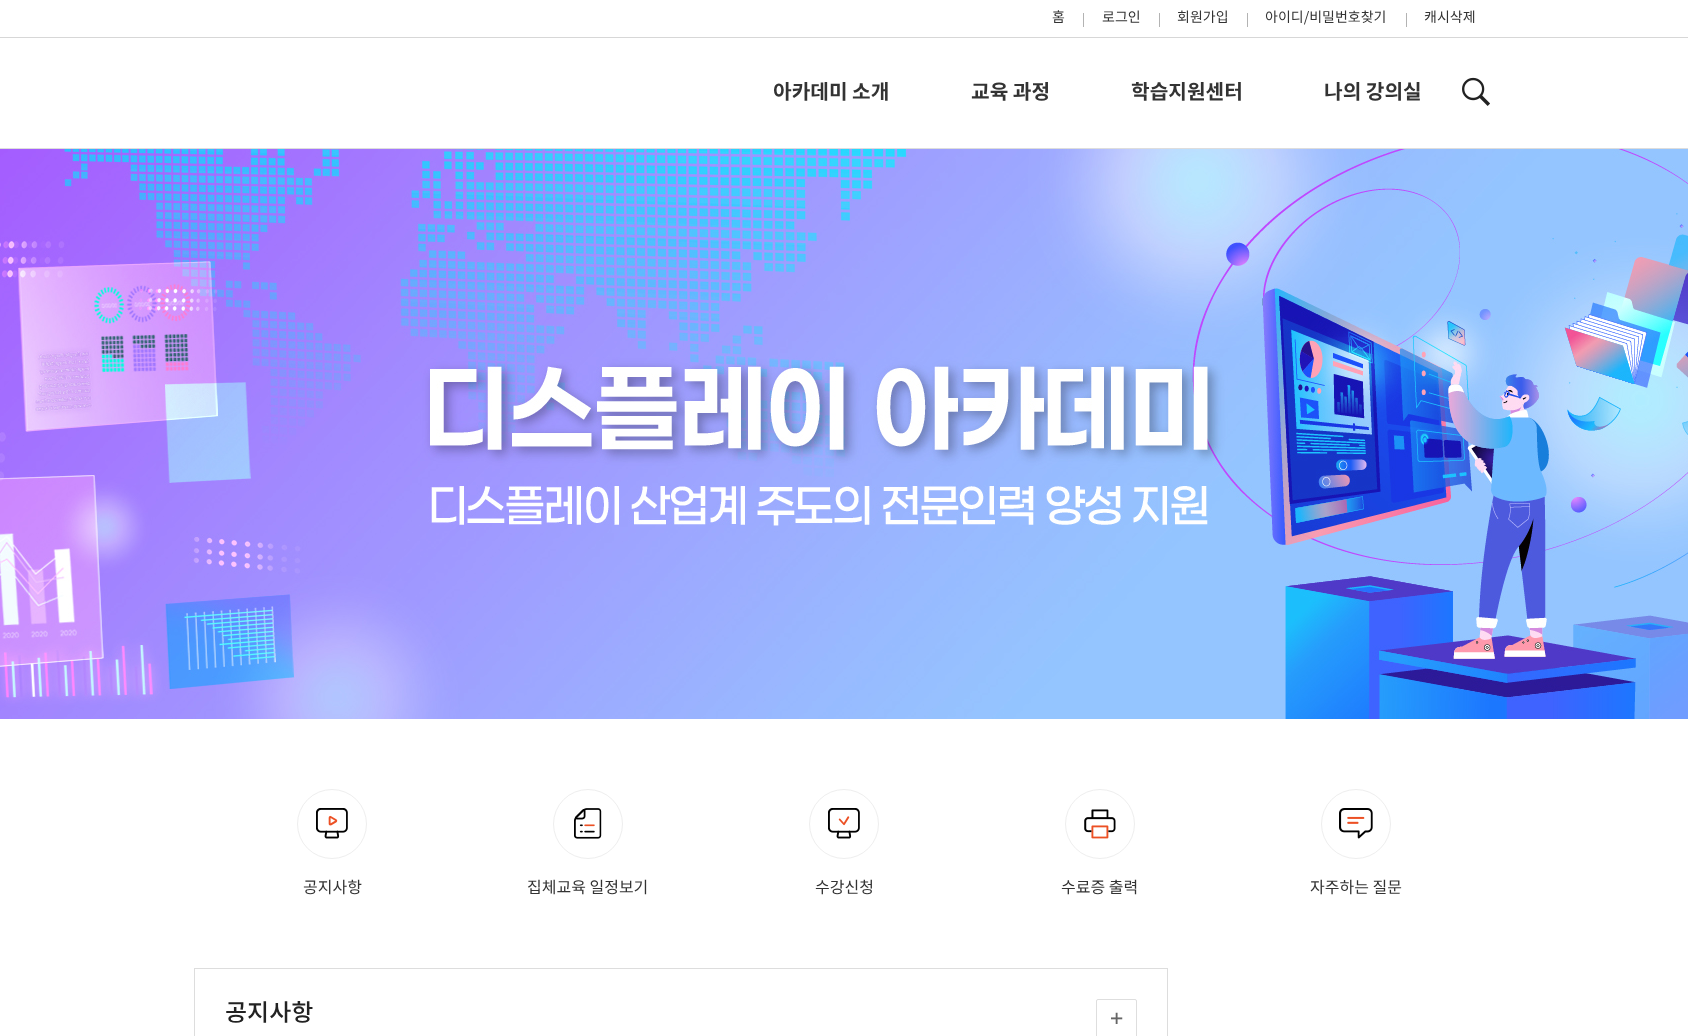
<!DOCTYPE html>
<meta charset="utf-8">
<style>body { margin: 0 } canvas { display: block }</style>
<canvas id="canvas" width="1688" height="1036"></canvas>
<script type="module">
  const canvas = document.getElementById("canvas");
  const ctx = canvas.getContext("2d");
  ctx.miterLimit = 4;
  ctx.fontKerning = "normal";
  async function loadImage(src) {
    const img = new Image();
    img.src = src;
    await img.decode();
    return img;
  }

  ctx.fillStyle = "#ffffff";
  ctx.fillRect(0, 0, 1688, 1036);
  ctx.fillStyle = "#dddddd";
  ctx.fillRect(0, 148, 1688, 1);
  ctx.fillStyle = "#d7d7d7";
  ctx.fillRect(0, 37, 1688, 1);
  ctx.font = "14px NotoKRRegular";
  ctx.fillStyle = "#333333";
  ctx.fillText("홈", 1052, 22);
  ctx.fillStyle = "#b3b3b3";
  ctx.fillRect(1083, 13, 1, 14);
  ctx.fillStyle = "#333333";
  ctx.fillText("로그인", 1102, 22);
  ctx.fillStyle = "#b3b3b3";
  ctx.fillRect(1159, 13, 1, 14);
  ctx.fillStyle = "#333333";
  ctx.fillText("회원가입", 1177, 22);
  ctx.fillStyle = "#b3b3b3";
  ctx.fillRect(1247, 13, 1, 14);
  ctx.fillStyle = "#333333";
  ctx.fillText("아이디/비밀번호찾기", 1265, 22);
  ctx.fillStyle = "#b3b3b3";
  ctx.fillRect(1406, 13, 1, 14);
  ctx.fillStyle = "#333333";
  ctx.fillText("캐시삭제", 1424, 22);
  ctx.font = "bold 20.25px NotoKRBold";
  ctx.fillText("아카데미 소개", 773, 99);
  ctx.fillText("교육 과정", 971, 99);
  ctx.fillText("학습지원센터", 1131, 99);
  ctx.fillText("나의 강의실", 1324, 99);
  ctx.drawImage(await loadImage("img1.png"), 1462, 77, 28, 29);
  ctx.drawImage(await loadImage("img2.png"), 0, 149, 1688, 570);
  ctx.beginPath();
  ctx.arc(332, 824, 34.5, 0, Math.PI * 2);
  ctx.strokeStyle = "#eeeeee";
  ctx.stroke();
  ctx.drawImage(await loadImage("img3.png"), 316, 808, 32, 31);
  ctx.font = "16px NotoKRRegular";
  ctx.fillText("공지사항", 303, 893);
  ctx.beginPath();
  ctx.arc(588, 824, 34.5, 0, Math.PI * 2);
  ctx.stroke();
  ctx.drawImage(await loadImage("img4.png"), 574, 808, 28, 31);
  ctx.fillText("집체교육 일정보기", 527, 893);
  ctx.beginPath();
  ctx.arc(844, 824, 34.5, 0, Math.PI * 2);
  ctx.stroke();
  ctx.drawImage(await loadImage("img5.png"), 828, 808, 32, 31);
  ctx.fillText("수강신청", 815, 893);
  ctx.beginPath();
  ctx.arc(1100, 824, 34.5, 0, Math.PI * 2);
  ctx.stroke();
  ctx.drawImage(await loadImage("img6.png"), 1084, 809, 32, 30);
  ctx.fillText("수료증 출력", 1061, 893);
  ctx.beginPath();
  ctx.arc(1356, 824, 34.5, 0, Math.PI * 2);
  ctx.stroke();
  ctx.drawImage(await loadImage("img7.png"), 1339, 808, 34, 31);
  ctx.fillText("자주하는 질문", 1310, 893);
  ctx.strokeStyle = "#dddddd";
  ctx.strokeRect(194.5, 968.5, 973, 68);
  ctx.font = "500 24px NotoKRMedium";
  ctx.fillStyle = "#222222";
  ctx.fillText("공지사항", 225, 1021);
  ctx.beginPath();
  ctx.roundRect(1096.5, 999.5, 40, 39, 1.5);
  ctx.strokeStyle = "#dedede";
  ctx.stroke();
  ctx.drawImage(await loadImage("img8.png"), 1111, 1012, 12, 12);
</script>
